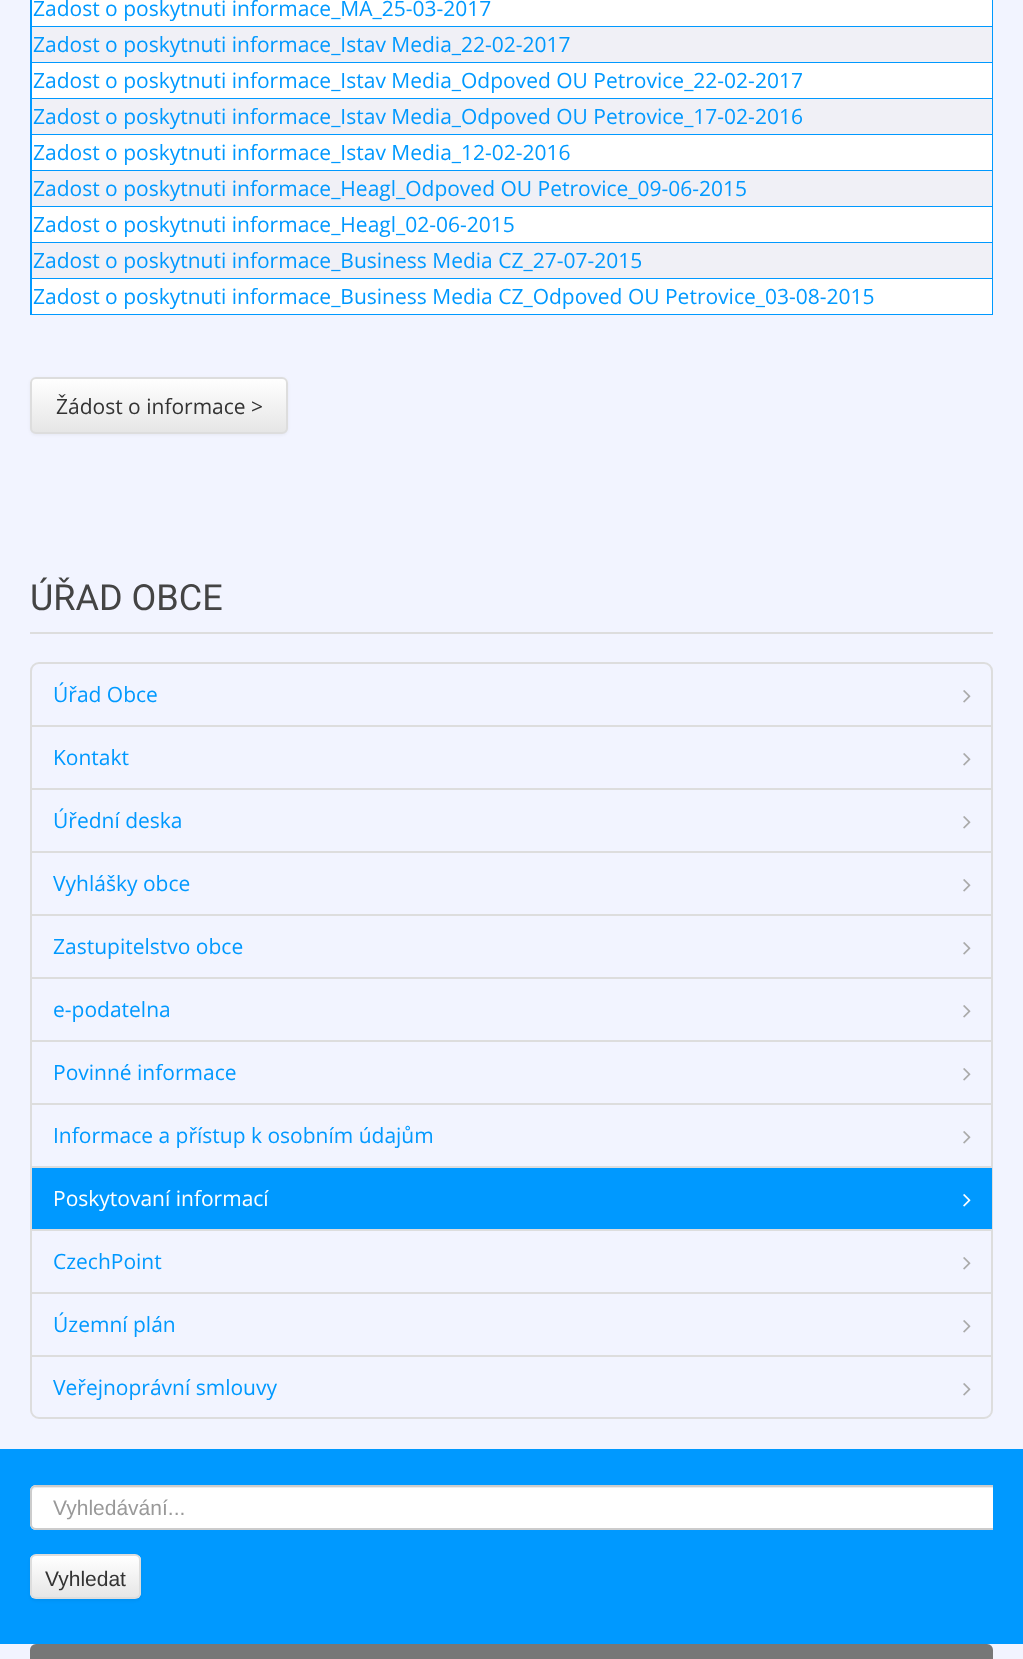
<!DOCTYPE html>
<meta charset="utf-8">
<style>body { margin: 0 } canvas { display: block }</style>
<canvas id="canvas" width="1023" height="1659"></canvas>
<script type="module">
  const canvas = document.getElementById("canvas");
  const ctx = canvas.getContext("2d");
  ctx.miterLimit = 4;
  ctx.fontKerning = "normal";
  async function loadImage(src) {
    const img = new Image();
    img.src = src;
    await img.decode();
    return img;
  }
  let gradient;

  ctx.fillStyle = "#f2f4ff";
  ctx.fillRect(0, 0, 1023, 1659);
  ctx.fillStyle = "#0099ff";
  ctx.fillRect(30, 0, 963, 315);
  ctx.fillStyle = "#ffffff";
  ctx.fillRect(32, 0, 960, 26);
  ctx.font = "21px Open Sans";
  ctx.fillStyle = "#0099ff";
  ctx.fillText("Zadost o poskytnuti informace_MA_25-03-2017", 33, 16);
  ctx.fillStyle = "#f0f0f6";
  ctx.fillRect(32, 27, 960, 35);
  ctx.fillStyle = "#0099ff";
  ctx.fillText("Zadost o poskytnuti informace_Istav Media_22-02-2017", 33, 52);
  ctx.fillStyle = "#ffffff";
  ctx.fillRect(32, 63, 960, 35);
  ctx.fillStyle = "#0099ff";
  ctx.fillText("Zadost o poskytnuti informace_Istav Media_Odpoved OU Petrovice_22-02-2017", 33, 88);
  ctx.fillStyle = "#f0f0f6";
  ctx.fillRect(32, 99, 960, 35);
  ctx.fillStyle = "#0099ff";
  ctx.fillText("Zadost o poskytnuti informace_Istav Media_Odpoved OU Petrovice_17-02-2016", 33, 124);
  ctx.fillStyle = "#ffffff";
  ctx.fillRect(32, 135, 960, 35);
  ctx.fillStyle = "#0099ff";
  ctx.fillText("Zadost o poskytnuti informace_Istav Media_12-02-2016", 33, 160);
  ctx.fillStyle = "#f0f0f6";
  ctx.fillRect(32, 171, 960, 35);
  ctx.fillStyle = "#0099ff";
  ctx.fillText("Zadost o poskytnuti informace_Heagl_Odpoved OU Petrovice_09-06-2015", 33, 196);
  ctx.fillStyle = "#ffffff";
  ctx.fillRect(32, 207, 960, 35);
  ctx.fillStyle = "#0099ff";
  ctx.fillText("Zadost o poskytnuti informace_Heagl_02-06-2015", 33, 232);
  ctx.fillStyle = "#f0f0f6";
  ctx.fillRect(32, 243, 960, 35);
  ctx.fillStyle = "#0099ff";
  ctx.fillText("Zadost o poskytnuti informace_Business Media CZ_27-07-2015", 33, 268);
  ctx.fillStyle = "#ffffff";
  ctx.fillRect(32, 279, 960, 35);
  ctx.fillStyle = "#0099ff";
  ctx.fillText("Zadost o poskytnuti informace_Business Media CZ_Odpoved OU Petrovice_03-08-2015", 33, 304);
  ctx.fillStyle = "rgba(0, 0, 0, 0.05)";
  ctx.filter = "blur(1.5px)";
  ctx.beginPath();
  ctx.roundRect(30, 378, 258, 57, 6);
  ctx.fill();
  ctx.filter = "none";
  ctx.save();
  ctx.beginPath();
  ctx.roundRect(30, 377, 258, 57, 6);
  ctx.clip();
  gradient = ctx.createLinearGradient(159, 378, 159, 432);
  gradient.addColorStop(0, "#ffffff");
  gradient.addColorStop(1, "#e6e6e6");
  ctx.fillStyle = gradient;
  ctx.fillRect(30, 378, 258, 54);
  ctx.restore();
  ctx.fillStyle = "rgba(255, 255, 255, 0.2)";
  ctx.beginPath();
  ctx.moveTo(36, 380);
  ctx.lineTo(282, 380);
  ctx.bezierCurveTo(284, 380, 286, 382, 286, 384);
  ctx.lineTo(286, 430);
  ctx.bezierCurveTo(287, 429, 287, 428, 287, 427);
  ctx.lineTo(287, 383);
  ctx.bezierCurveTo(287, 380, 285, 378, 282, 378);
  ctx.lineTo(37, 378);
  ctx.bezierCurveTo(34, 378, 32, 380, 32, 383);
  ctx.lineTo(32, 384);
  ctx.bezierCurveTo(32, 382, 34, 380, 36, 380);
  ctx.closePath();
  ctx.fill();
  ctx.beginPath();
  ctx.roundRect(31, 378, 256, 55, 5);
  ctx.strokeStyle = "#dddddd";
  ctx.lineWidth = 2;
  ctx.stroke();
  ctx.fillStyle = "#333333";
  ctx.fillText("Žádost o informace >", 56, 414);
  ctx.fillStyle = "#dddddd";
  ctx.fillRect(30, 632, 963, 2);
  ctx.font = "36px Roboto";
  ctx.fillStyle = "#444444";
  ctx.fillText("ÚŘAD OBCE", 30, 610);
  ctx.beginPath();
  ctx.roundRect(31, 663, 961, 755, 8);
  ctx.stroke();
  ctx.font = "21px Open Sans";
  ctx.fillStyle = "#0099ff";
  ctx.fillText("Úřad Obce", 53, 702);
  ctx.drawImage(await loadImage("img1.png"), 963, 690, 8, 13);
  ctx.fillStyle = "#dddddd";
  ctx.fillRect(32, 725, 960, 2);
  ctx.fillStyle = "#0099ff";
  ctx.fillText("Kontakt", 53, 765);
  ctx.drawImage(await loadImage("img1.png"), 963, 753, 8, 13);
  ctx.fillStyle = "#dddddd";
  ctx.fillRect(32, 788, 960, 2);
  ctx.fillStyle = "#0099ff";
  ctx.fillText("Úřední deska", 53, 828);
  ctx.drawImage(await loadImage("img1.png"), 963, 816, 8, 13);
  ctx.fillStyle = "#dddddd";
  ctx.fillRect(32, 851, 960, 2);
  ctx.fillStyle = "#0099ff";
  ctx.fillText("Vyhlášky obce", 53, 891);
  ctx.drawImage(await loadImage("img1.png"), 963, 879, 8, 13);
  ctx.fillStyle = "#dddddd";
  ctx.fillRect(32, 914, 960, 2);
  ctx.fillStyle = "#0099ff";
  ctx.fillText("Zastupitelstvo obce", 53, 954);
  ctx.drawImage(await loadImage("img1.png"), 963, 942, 8, 13);
  ctx.fillStyle = "#dddddd";
  ctx.fillRect(32, 977, 960, 2);
  ctx.fillStyle = "#0099ff";
  ctx.fillText("e-podatelna", 53, 1017);
  ctx.drawImage(await loadImage("img1.png"), 963, 1005, 8, 13);
  ctx.fillStyle = "#dddddd";
  ctx.fillRect(32, 1040, 960, 2);
  ctx.fillStyle = "#0099ff";
  ctx.fillText("Povinné informace", 53, 1080);
  ctx.drawImage(await loadImage("img1.png"), 963, 1068, 8, 13);
  ctx.fillStyle = "#dddddd";
  ctx.fillRect(32, 1103, 960, 2);
  ctx.fillStyle = "#0099ff";
  ctx.fillText("Informace a přístup k osobním údajům", 53, 1143);
  ctx.drawImage(await loadImage("img1.png"), 963, 1131, 8, 13);
  ctx.fillRect(32, 1168, 960, 61);
  ctx.fillStyle = "#dddddd";
  ctx.fillRect(32, 1166, 960, 2);
  ctx.fillStyle = "#ffffff";
  ctx.fillText("Poskytovaní informací", 53, 1206);
  ctx.drawImage(await loadImage("img2.png"), 963, 1194, 8, 13);
  ctx.fillStyle = "#dddddd";
  ctx.fillRect(32, 1229, 960, 2);
  ctx.fillStyle = "#0099ff";
  ctx.fillText("CzechPoint", 53, 1269);
  ctx.drawImage(await loadImage("img1.png"), 963, 1257, 8, 13);
  ctx.fillStyle = "#dddddd";
  ctx.fillRect(32, 1292, 960, 2);
  ctx.fillStyle = "#0099ff";
  ctx.fillText("Územní plán", 53, 1332);
  ctx.drawImage(await loadImage("img1.png"), 963, 1320, 8, 13);
  ctx.fillStyle = "#dddddd";
  ctx.fillRect(32, 1355, 960, 2);
  ctx.fillStyle = "#0099ff";
  ctx.fillText("Veřejnoprávní smlouvy", 53, 1395);
  ctx.drawImage(await loadImage("img1.png"), 963, 1383, 8, 13);
  ctx.fillRect(0, 1449, 1023, 195);
  ctx.fillStyle = "#ffffff";
  ctx.beginPath();
  ctx.roundRect(30, 1485, 963, 45, [6, 0, 0, 6]);
  ctx.fill();
  ctx.save();
  ctx.beginPath();
  ctx.rect(30, 1464, 963, 165);
  ctx.clip();
  ctx.fillStyle = "#ececec";
  ctx.beginPath();
  ctx.moveTo(36, 1488);
  ctx.lineTo(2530, 1488);
  ctx.bezierCurveTo(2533, 1488, 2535, 1490, 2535, 1492);
  ctx.bezierCurveTo(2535, 1489, 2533, 1487, 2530, 1487);
  ctx.lineTo(37, 1487);
  ctx.bezierCurveTo(34, 1487, 32, 1489, 32, 1492);
  ctx.bezierCurveTo(32, 1490, 34, 1488, 36, 1488);
  ctx.closePath();
  ctx.fill();
  ctx.beginPath();
  ctx.roundRect(31, 1486, 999, 43, 5);
  ctx.strokeStyle = "#cccccc";
  ctx.stroke();
  ctx.restore();
  ctx.font = "21px Liberation Sans";
  ctx.fillStyle = "#999999";
  ctx.fillText("Vyhledávání...", 53, 1515);
  ctx.fillStyle = "rgba(0, 0, 0, 0.05)";
  ctx.filter = "blur(1.5px)";
  ctx.beginPath();
  ctx.roundRect(30, 1556, 111, 45, 6);
  ctx.fill();
  ctx.filter = "none";
  ctx.save();
  ctx.beginPath();
  ctx.roundRect(30, 1554, 111, 45, 6);
  ctx.clip();
  gradient = ctx.createLinearGradient(86, 1556, 86, 1598);
  gradient.addColorStop(0, "#ffffff");
  gradient.addColorStop(1, "#e6e6e6");
  ctx.fillStyle = gradient;
  ctx.fillRect(30, 1556, 111, 42);
  ctx.restore();
  ctx.beginPath();
  ctx.roundRect(31, 1555, 109, 43, 5);
  ctx.stroke();
  ctx.fillStyle = "#333333";
  ctx.fillText("Vyhledat", 45, 1586);
  ctx.fillStyle = "#777777";
  ctx.beginPath();
  ctx.roundRect(30, 1644, 963, 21, 6);
  ctx.fill();
</script>
